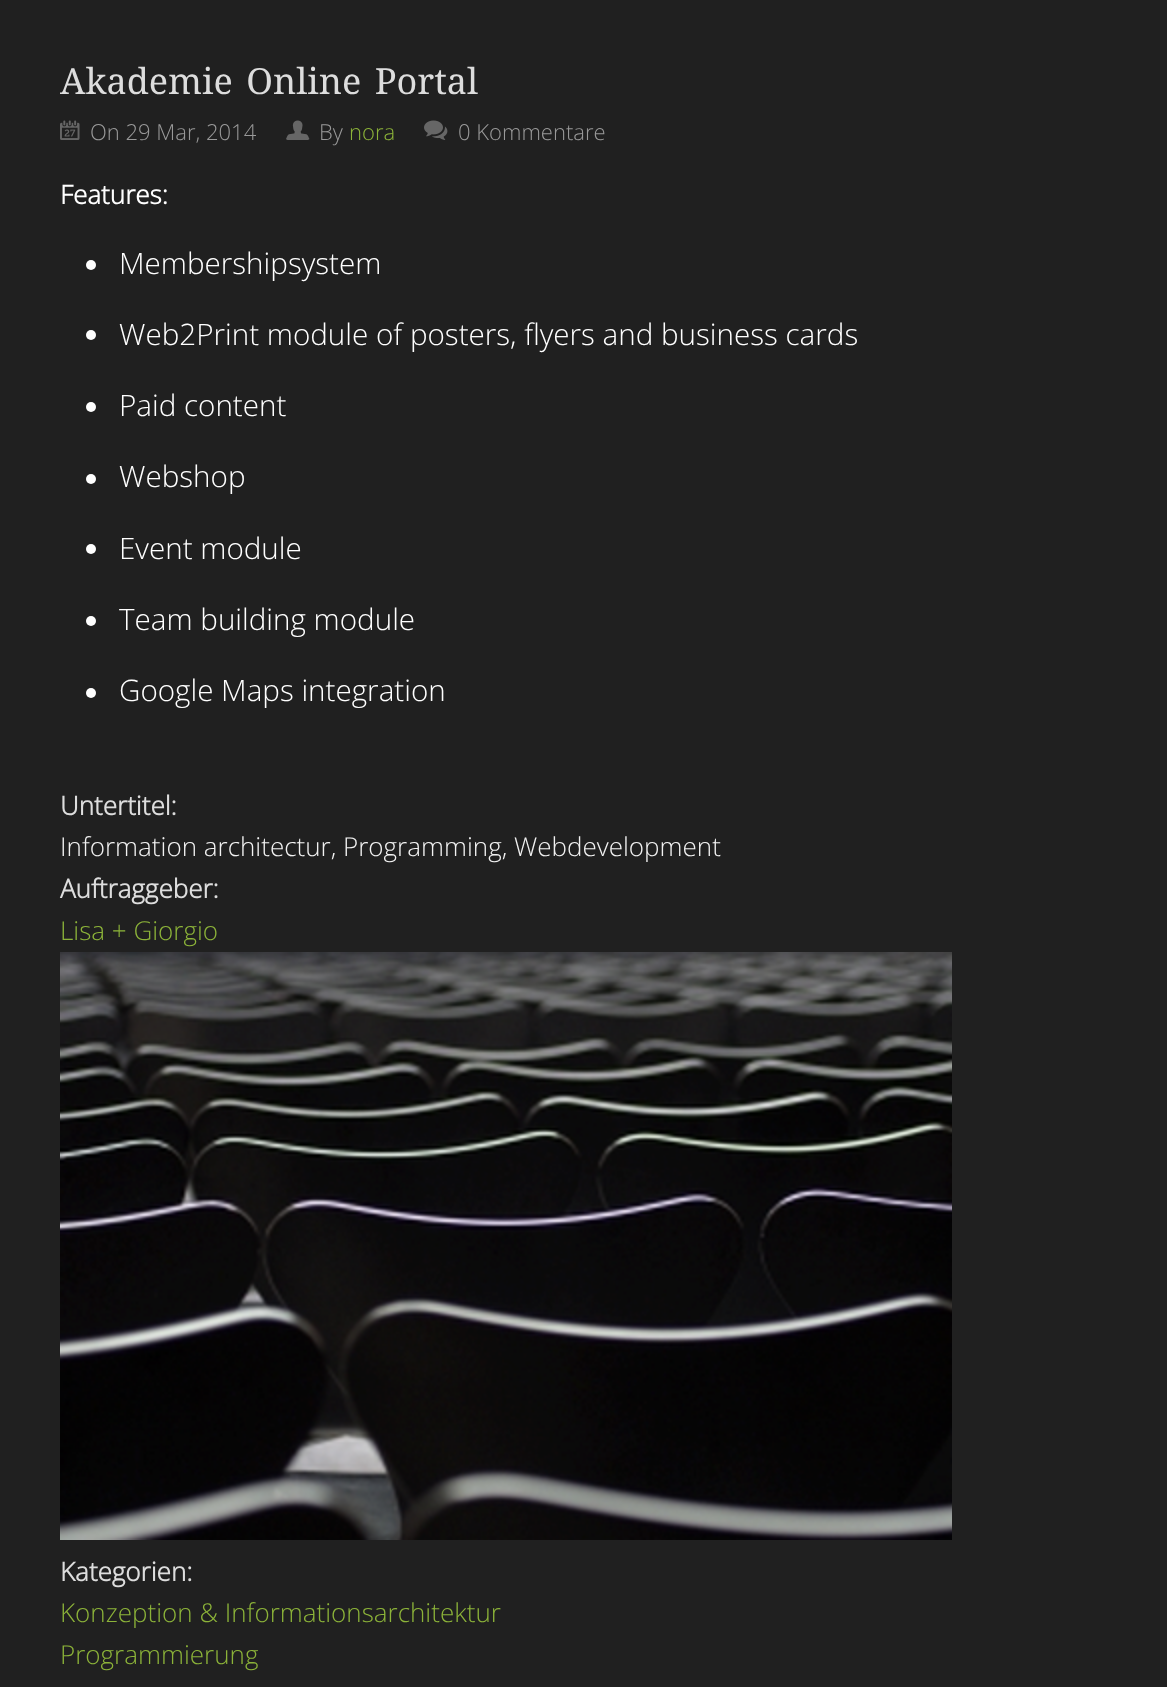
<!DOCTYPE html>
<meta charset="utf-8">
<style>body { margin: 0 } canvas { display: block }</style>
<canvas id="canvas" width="1167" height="1687"></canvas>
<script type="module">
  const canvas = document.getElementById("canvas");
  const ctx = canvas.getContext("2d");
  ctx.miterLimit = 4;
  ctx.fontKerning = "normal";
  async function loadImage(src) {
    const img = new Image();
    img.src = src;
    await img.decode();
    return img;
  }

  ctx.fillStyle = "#202020";
  ctx.fillRect(0, 0, 1167, 1687);
  ctx.wordSpacing = "4px";
  ctx.font = "36px Droid Serif";
  ctx.fillStyle = "#dddddd";
  ctx.fillText("Akademie Online Portal", 60, 94);
  ctx.drawImage(await loadImage("img1.png"), 60, 120, 20, 20);
  ctx.wordSpacing = "0px";
  ctx.font = "300 22px Open Sans";
  ctx.fillStyle = "#999999";
  ctx.fillText("On 29 Mar, 2014", 90, 140);
  ctx.drawImage(await loadImage("img2.png"), 286, 120, 24, 20);
  ctx.fillText("By", 319, 140);
  ctx.fillStyle = "#8cb339";
  ctx.fillText("nora", 349, 140);
  ctx.drawImage(await loadImage("img3.png"), 424, 120, 24, 20);
  ctx.fillStyle = "#999999";
  ctx.fillText("0 Kommentare", 458, 140);
  ctx.font = "bold 26px Open Sans";
  ctx.fillStyle = "#ffffff";
  ctx.fillText("Features:", 60, 204);
  ctx.beginPath();
  ctx.arc(91, 265, 5, 0, Math.PI * 2);
  ctx.fill();
  ctx.font = "300 29.6px Open Sans";
  ctx.fillText("Membershipsystem", 119, 274);
  ctx.beginPath();
  ctx.arc(91, 335, 5, 0, Math.PI * 2);
  ctx.fill();
  ctx.fillText("Web2Print module of posters, flyers and business cards", 119, 345);
  ctx.beginPath();
  ctx.arc(91, 407, 5, 0, Math.PI * 2);
  ctx.fill();
  ctx.fillText("Paid content", 119, 416);
  ctx.beginPath();
  ctx.arc(91, 479, 5, 0, Math.PI * 2);
  ctx.fill();
  ctx.fillText("Webshop", 119, 487);
  ctx.beginPath();
  ctx.arc(91, 549, 5, 0, Math.PI * 2);
  ctx.fill();
  ctx.fillText("Event module", 119, 559);
  ctx.beginPath();
  ctx.arc(91, 621, 5, 0, Math.PI * 2);
  ctx.fill();
  ctx.fillText("Team building module", 119, 630);
  ctx.beginPath();
  ctx.arc(91, 693, 5, 0, Math.PI * 2);
  ctx.fill();
  ctx.fillText("Google Maps integration", 119, 701);
  ctx.font = "bold 26px Open Sans";
  ctx.fillStyle = "#dddddd";
  ctx.fillText("Untertitel:", 60, 815);
  ctx.font = "300 26px Open Sans";
  ctx.fillStyle = "#f2f2f2";
  ctx.fillText("Information architectur, Programming, Webdevelopment", 60, 856);
  ctx.font = "bold 26px Open Sans";
  ctx.fillStyle = "#dddddd";
  ctx.fillText("Auftraggeber:", 60, 898);
  ctx.font = "300 26px Open Sans";
  ctx.fillStyle = "#8cb339";
  ctx.fillText("Lisa + Giorgio", 60, 940);
  ctx.drawImage(await loadImage("img4.png"), 60, 952, 892, 588);
  ctx.font = "bold 26px Open Sans";
  ctx.fillStyle = "#dddddd";
  ctx.fillText("Kategorien:", 60, 1581);
  ctx.font = "300 26px Open Sans";
  ctx.fillStyle = "#8cb339";
  ctx.fillText("Konzeption & Informationsarchitektur", 60, 1622);
  ctx.fillText("Programmierung", 60, 1664);
</script>
